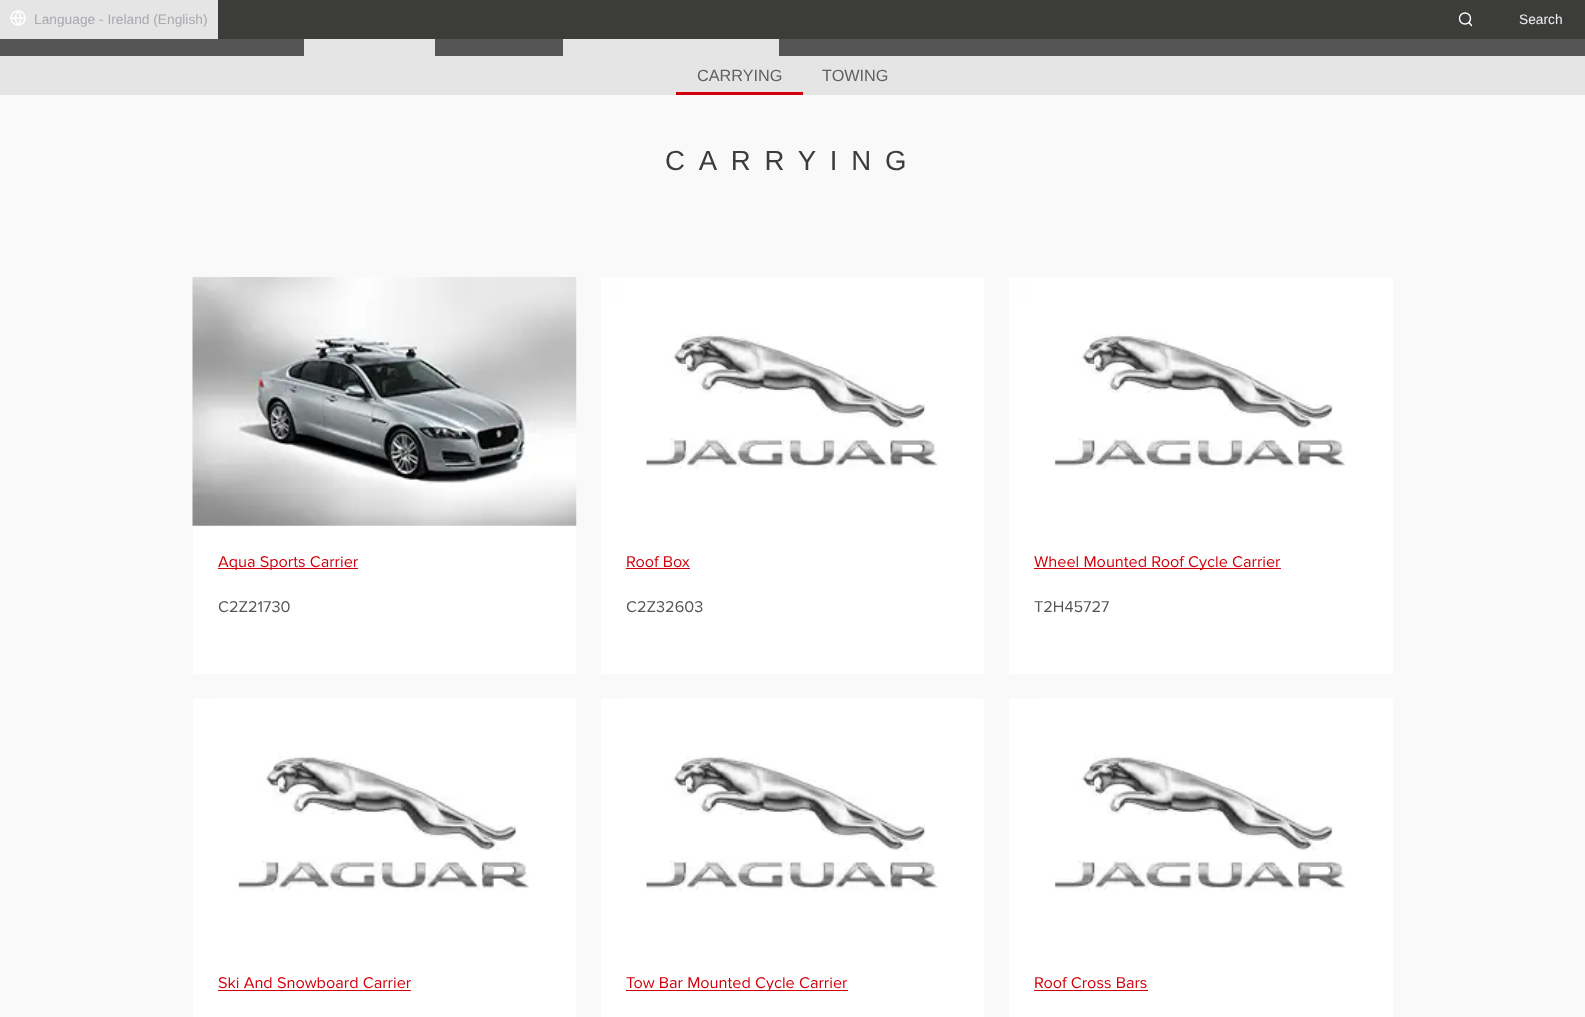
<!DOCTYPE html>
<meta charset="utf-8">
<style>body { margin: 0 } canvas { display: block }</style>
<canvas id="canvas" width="1585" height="1017"></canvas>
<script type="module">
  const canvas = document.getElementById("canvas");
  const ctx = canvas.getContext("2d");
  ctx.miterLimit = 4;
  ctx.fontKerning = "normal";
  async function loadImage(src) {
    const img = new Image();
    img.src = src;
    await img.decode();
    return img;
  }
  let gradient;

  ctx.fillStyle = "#f9f9f9";
  ctx.fillRect(0, 0, 1585, 1017);
  ctx.fillStyle = "#3c3c3b";
  ctx.fillRect(218, 0, 1367, 39);
  ctx.fillStyle = "#e5e5e5";
  ctx.fillRect(0, 0, 218, 39);
  ctx.drawImage(await loadImage("img1.png"), 10, 10, 16, 16);
  ctx.font = "13.75px Liberation Sans";
  ctx.fillStyle = "#a8aaae";
  ctx.fillText("Language - Ireland (English)", 34, 24);
  ctx.beginPath();
  ctx.arc(1465, 18.5, 5.5, 0, Math.PI * 2);
  ctx.strokeStyle = "#ffffff";
  ctx.lineWidth = 1.4;
  ctx.stroke();
  ctx.beginPath();
  ctx.moveTo(1471.5, 25.5);
  ctx.lineTo(1469, 22.5);
  ctx.lineCap = "round";
  ctx.lineJoin = "round";
  ctx.stroke();
  ctx.fillStyle = "#f0f0f0";
  ctx.fillText("Search", 1519, 24);
  ctx.fillStyle = "#555555";
  ctx.fillRect(0, 39, 1585, 17);
  ctx.fillStyle = "#e5e5e5";
  ctx.fillRect(304, 39, 131, 17);
  ctx.fillRect(563, 39, 216, 17);
  ctx.fillRect(0, 56, 1585, 39);
  gradient = ctx.createLinearGradient(739, 56, 739, 95);
  gradient.addColorStop(0, "#e5e5e5");
  gradient.addColorStop(0.92, "#e5e5e5");
  gradient.addColorStop(0.92, "#d2000a");
  gradient.addColorStop(1, "#d2000a");
  ctx.fillStyle = gradient;
  ctx.fillRect(676, 92, 127, 3);
  ctx.font = "16.25px Liberation Sans";
  ctx.fillStyle = "#615f61";
  ctx.fillText("CARRYING", 697, 81);
  ctx.fillText("TOWING", 822, 81);
  ctx.letterSpacing = "13.75px";
  ctx.font = "27.6px Liberation Sans";
  ctx.fillStyle = "#3c3c3b";
  ctx.fillText("CARRYING", 665, 170);
  ctx.fillStyle = "#ffffff";
  ctx.fillRect(193, 525, 383, 149);
  ctx.drawImage(await loadImage("img2.png"), 192, 277, 385, 249);
  ctx.fillStyle = "#d2000a";
  ctx.fillRect(218, 568, 140, 1);
  ctx.letterSpacing = "0px";
  ctx.font = "16.25px Proxima Nova";
  ctx.fillText("Aqua Sports Carrier", 218, 567);
  ctx.fillStyle = "#555555";
  ctx.fillText("C2Z21730", 218, 612);
  ctx.fillStyle = "#ffffff";
  ctx.fillRect(601, 278, 383, 396);
  ctx.drawImage(await loadImage("img3.png"), 602, 277, 382, 192);
  ctx.fillStyle = "#d2000a";
  ctx.fillText("Roof Box", 626, 567);
  ctx.fillRect(626, 568, 64, 1);
  ctx.fillStyle = "#555555";
  ctx.fillText("C2Z32603", 626, 612);
  ctx.fillStyle = "#ffffff";
  ctx.fillRect(1009, 278, 384, 396);
  ctx.drawImage(await loadImage("img4.png"), 1009, 277, 383, 192);
  ctx.fillStyle = "#d2000a";
  ctx.fillRect(1034, 568, 247, 1);
  ctx.fillText("Wheel Mounted Roof Cycle Carrier", 1034, 567);
  ctx.fillStyle = "#555555";
  ctx.fillText("T2H45727", 1034, 612);
  ctx.fillStyle = "#ffffff";
  ctx.fillRect(193, 699, 383, 318);
  ctx.drawImage(await loadImage("img5.png"), 216, 698, 360, 193);
  ctx.fillStyle = "#d2000a";
  ctx.fillText("Ski And Snowboard Carrier", 218, 988);
  ctx.fillRect(218, 990, 193, 1);
  ctx.fillStyle = "#ffffff";
  ctx.fillRect(601, 699, 383, 318);
  ctx.drawImage(await loadImage("img6.png"), 624, 698, 359, 193);
  ctx.fillStyle = "#d2000a";
  ctx.fillRect(626, 990, 222, 1);
  ctx.fillText("Tow Bar Mounted Cycle Carrier", 626, 988);
  ctx.fillStyle = "#ffffff";
  ctx.fillRect(1009, 699, 384, 318);
  ctx.drawImage(await loadImage("img7.png"), 1033, 698, 359, 193);
  ctx.fillStyle = "#d2000a";
  ctx.fillText("Roof Cross Bars", 1034, 988);
  ctx.fillRect(1034, 990, 114, 1);
</script>
